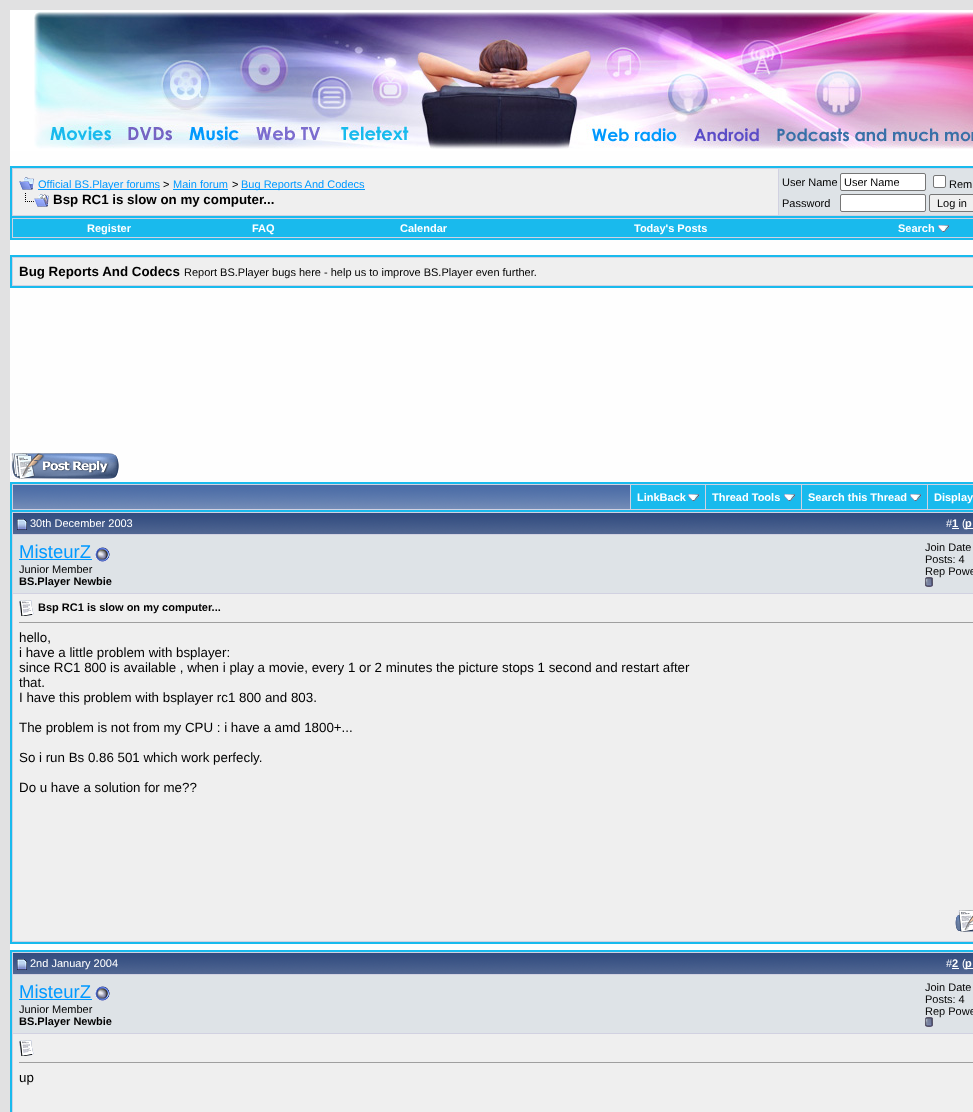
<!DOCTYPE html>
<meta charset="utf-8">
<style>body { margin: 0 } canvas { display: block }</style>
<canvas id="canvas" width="973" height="1112"></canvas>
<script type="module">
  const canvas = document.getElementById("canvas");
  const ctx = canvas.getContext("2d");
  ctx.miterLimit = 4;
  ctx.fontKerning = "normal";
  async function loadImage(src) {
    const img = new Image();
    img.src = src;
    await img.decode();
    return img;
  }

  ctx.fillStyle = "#e1e1e2";
  ctx.fillRect(0, 0, 973, 1112);
  ctx.fillStyle = "#ffffff";
  ctx.fillRect(10, 10, 963, 141);
  ctx.drawImage(await loadImage("img1.png"), 34, 12, 939, 137);
  ctx.fillStyle = "#fefefe";
  ctx.fillRect(10, 151, 963, 331);
  ctx.fillStyle = "#d1d1e1";
  ctx.beginPath();
  ctx.rect(11, 167, 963, 50);
  ctx.fill();
  ctx.strokeStyle = "#19baed";
  ctx.lineWidth = 2;
  ctx.stroke();
  ctx.fillStyle = "#efefef";
  ctx.fillRect(13, 169, 765, 46);
  ctx.drawImage(await loadImage("img2.png"), 19, 177, 15, 13);
  ctx.fillStyle = "#0099ff";
  ctx.fillRect(38, 189, 122, 1);
  ctx.font = "11px Liberation Sans";
  ctx.fillText("Official BS.Player forums", 38, 188);
  ctx.fillStyle = "#000000";
  ctx.fillText(">", 163, 188);
  ctx.fillStyle = "#0099ff";
  ctx.fillText("Main forum", 173, 188);
  ctx.fillRect(173, 189, 55, 1);
  ctx.fillStyle = "#000000";
  ctx.fillText(">", 232, 188);
  ctx.fillStyle = "#0099ff";
  ctx.fillRect(241, 189, 124, 1);
  ctx.fillText("Bug Reports And Codecs", 241, 188);
  ctx.drawImage(await loadImage("img3.png"), 25, 193, 24, 14);
  ctx.font = "bold 13.33px Liberation Sans";
  ctx.fillStyle = "#000000";
  ctx.fillText("Bsp RC1 is slow on my computer...", 53, 204);
  ctx.fillStyle = "#dee3e7";
  ctx.fillRect(779, 169, 194, 46);
  ctx.font = "11px Liberation Sans";
  ctx.fillStyle = "#000000";
  ctx.fillText("User Name", 782, 186);
  ctx.fillStyle = "#ffffff";
  ctx.beginPath();
  ctx.roundRect(840.5, 173.5, 85, 17, 1.5);
  ctx.fill();
  ctx.strokeStyle = "#767676";
  ctx.lineWidth = 1;
  ctx.stroke();
  ctx.fillStyle = "#000000";
  ctx.fillText("User Name", 844, 186);
  ctx.fillStyle = "#ffffff";
  ctx.beginPath();
  ctx.roundRect(933.5, 175.5, 12, 12, 1.5);
  ctx.fill();
  ctx.stroke();
  ctx.fillStyle = "#000000";
  ctx.fillText("Rem", 949, 188);
  ctx.fillText("Password", 782, 207);
  ctx.fillStyle = "#ffffff";
  ctx.beginPath();
  ctx.roundRect(840.5, 194.5, 85, 17, 1.5);
  ctx.fill();
  ctx.stroke();
  ctx.fillStyle = "#efefef";
  ctx.beginPath();
  ctx.roundRect(929.5, 194.5, 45, 17, 1.5);
  ctx.fill();
  ctx.stroke();
  ctx.fillStyle = "#000000";
  ctx.fillText("Log in", 937, 207);
  ctx.fillStyle = "#d1d1e1";
  ctx.fillRect(12, 218, 961, 20);
  ctx.fillStyle = "#19baed";
  ctx.fillRect(10, 238, 963, 2);
  ctx.fillRect(10, 218, 2, 22);
  ctx.fillRect(13, 219, 960, 18);
  ctx.font = "bold 11px Liberation Sans";
  ctx.fillStyle = "#ffffff";
  ctx.fillText("Register", 87, 232);
  ctx.fillText("FAQ", 252, 232);
  ctx.fillText("Calendar", 400, 232);
  ctx.fillText("Today's Posts", 634, 232);
  ctx.fillText("Search", 898, 232);
  ctx.drawImage(await loadImage("img4.png"), 938, 225, 11, 7);
  ctx.fillStyle = "#d1d1e1";
  ctx.beginPath();
  ctx.rect(11, 256, 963, 31);
  ctx.fill();
  ctx.strokeStyle = "#19baed";
  ctx.lineWidth = 2;
  ctx.stroke();
  ctx.fillStyle = "#efefef";
  ctx.fillRect(13, 258, 960, 27);
  ctx.font = "bold 13.33px Liberation Sans";
  ctx.fillStyle = "#000000";
  ctx.fillText("Bug Reports And Codecs", 19, 276);
  ctx.font = "11px Liberation Sans";
  ctx.fillText("Report BS.Player bugs here - help us to improve BS.Player even further.", 184, 276);
  ctx.drawImage(await loadImage("img5.png"), 11, 453, 108, 26);
  ctx.fillStyle = "#d1d1e1";
  ctx.fillRect(12, 484, 961, 26);
  ctx.fillStyle = "#19baed";
  ctx.fillRect(10, 482, 963, 2);
  ctx.fillRect(10, 482, 2, 28);
  ctx.drawImage(await loadImage("img6.png"), 13, 485, 617, 24);
  ctx.fillRect(631, 485, 74, 24);
  ctx.font = "bold 11px Liberation Sans";
  ctx.fillStyle = "#ffffff";
  ctx.fillText("LinkBack", 637, 501);
  ctx.drawImage(await loadImage("img4.png"), 688, 494, 11, 7);
  ctx.fillStyle = "#19baed";
  ctx.fillRect(706, 485, 95, 24);
  ctx.fillStyle = "#ffffff";
  ctx.fillText("Thread Tools", 712, 501);
  ctx.drawImage(await loadImage("img4.png"), 784, 494, 11, 7);
  ctx.fillStyle = "#19baed";
  ctx.fillRect(802, 485, 125, 24);
  ctx.fillStyle = "#ffffff";
  ctx.fillText("Search this Thread", 808, 501);
  ctx.drawImage(await loadImage("img4.png"), 910, 494, 11, 7);
  ctx.fillStyle = "#19baed";
  ctx.fillRect(928, 485, 45, 24);
  ctx.fillStyle = "#ffffff";
  ctx.fillText("Display", 934, 501);
  ctx.fillStyle = "#fefefe";
  ctx.fillRect(10, 944, 963, 6);
  ctx.fillStyle = "#d1d1e1";
  ctx.beginPath();
  ctx.rect(11, 511, 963, 432);
  ctx.fill();
  ctx.stroke();
  ctx.drawImage(await loadImage("img7.png"), 13, 513, 960, 21);
  ctx.drawImage(await loadImage("img8.png"), 17, 519, 10, 11);
  ctx.font = "11px Liberation Sans";
  ctx.fillStyle = "#ffffff";
  ctx.fillText("30th December 2003", 30, 527);
  ctx.fillText("#", 946, 527);
  ctx.font = "bold 11px Liberation Sans";
  ctx.fillText("1", 952, 527);
  ctx.fillRect(952, 528, 7, 1);
  ctx.font = "11px Liberation Sans";
  ctx.fillText("(", 962, 527);
  ctx.fillRect(965, 528, 8, 1);
  ctx.font = "bold 11px Liberation Sans";
  ctx.fillText("p", 965, 527);
  ctx.fillStyle = "#dee3e7";
  ctx.fillRect(13, 535, 960, 58);
  ctx.font = "18.5px Liberation Sans";
  ctx.fillStyle = "#0099ff";
  ctx.fillText("MisteurZ", 19, 558);
  ctx.fillRect(19, 559, 73, 1);
  ctx.drawImage(await loadImage("img9.png"), 95, 547, 15, 15);
  ctx.font = "11px Liberation Sans";
  ctx.fillStyle = "#000000";
  ctx.fillText("Junior Member", 19, 573);
  ctx.font = "bold 11px Liberation Sans";
  ctx.fillText("BS.Player Newbie", 19, 585);
  ctx.font = "11px Liberation Sans";
  ctx.fillText("Join Date", 925, 551);
  ctx.fillText("Posts: 4", 925, 563);
  ctx.fillText("Rep Powe", 925, 575);
  ctx.drawImage(await loadImage("img10.png"), 925, 577, 8, 10);
  ctx.fillStyle = "#efefef";
  ctx.fillRect(13, 594, 960, 347);
  ctx.drawImage(await loadImage("img11.png"), 19, 600, 15, 16);
  ctx.font = "bold 11px Liberation Sans";
  ctx.fillStyle = "#000000";
  ctx.fillText("Bsp RC1 is slow on my computer...", 38, 611);
  ctx.fillStyle = "#9f9f9f";
  ctx.fillRect(19, 622, 954, 1);
  ctx.font = "13.33px Liberation Sans";
  ctx.fillStyle = "#000000";
  ctx.fillText("hello,", 19, 642);
  ctx.fillText("i have a little problem with bsplayer:", 19, 657);
  ctx.fillText("since RC1 800 is available , when i play a movie, every 1 or 2 minutes the picture stops 1 second and restart after", 19, 672);
  ctx.fillText("that.", 19, 687);
  ctx.fillText("I have this problem with bsplayer rc1 800 and 803.", 19, 702);
  ctx.fillText("The problem is not from my CPU : i have a amd 1800+...", 19, 732);
  ctx.fillText("So i run Bs 0.86 501 which work perfecly.", 19, 762);
  ctx.fillText("Do u have a solution for me??", 19, 792);
  ctx.drawImage(await loadImage("img12.png"), 955, 910, 18, 22);
  ctx.fillStyle = "#d1d1e1";
  ctx.beginPath();
  ctx.rect(11, 951, 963, 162);
  ctx.fill();
  ctx.stroke();
  ctx.drawImage(await loadImage("img7.png"), 13, 953, 960, 21);
  ctx.drawImage(await loadImage("img8.png"), 17, 959, 10, 11);
  ctx.font = "11px Liberation Sans";
  ctx.fillStyle = "#ffffff";
  ctx.fillText("2nd January 2004", 30, 967);
  ctx.fillText("#", 946, 967);
  ctx.font = "bold 11px Liberation Sans";
  ctx.fillText("2", 952, 967);
  ctx.fillRect(952, 968, 7, 1);
  ctx.font = "11px Liberation Sans";
  ctx.fillText("(", 962, 967);
  ctx.fillRect(965, 968, 8, 1);
  ctx.font = "bold 11px Liberation Sans";
  ctx.fillText("p", 965, 967);
  ctx.fillStyle = "#dee3e7";
  ctx.fillRect(13, 975, 960, 58);
  ctx.font = "18.5px Liberation Sans";
  ctx.fillStyle = "#0099ff";
  ctx.fillText("MisteurZ", 19, 998);
  ctx.fillRect(19, 999, 73, 1);
  ctx.drawImage(await loadImage("img9.png"), 95, 986, 15, 15);
  ctx.font = "11px Liberation Sans";
  ctx.fillStyle = "#000000";
  ctx.fillText("Junior Member", 19, 1013);
  ctx.font = "bold 11px Liberation Sans";
  ctx.fillText("BS.Player Newbie", 19, 1025);
  ctx.font = "11px Liberation Sans";
  ctx.fillText("Join Date", 925, 991);
  ctx.fillText("Posts: 4", 925, 1003);
  ctx.fillText("Rep Powe", 925, 1015);
  ctx.drawImage(await loadImage("img10.png"), 925, 1017, 8, 10);
  ctx.fillStyle = "#efefef";
  ctx.fillRect(13, 1034, 960, 78);
  ctx.drawImage(await loadImage("img11.png"), 19, 1040, 15, 16);
  ctx.fillStyle = "#9f9f9f";
  ctx.fillRect(19, 1062, 954, 1);
  ctx.font = "13.33px Liberation Sans";
  ctx.fillStyle = "#000000";
  ctx.fillText("up", 19, 1082);
</script>
